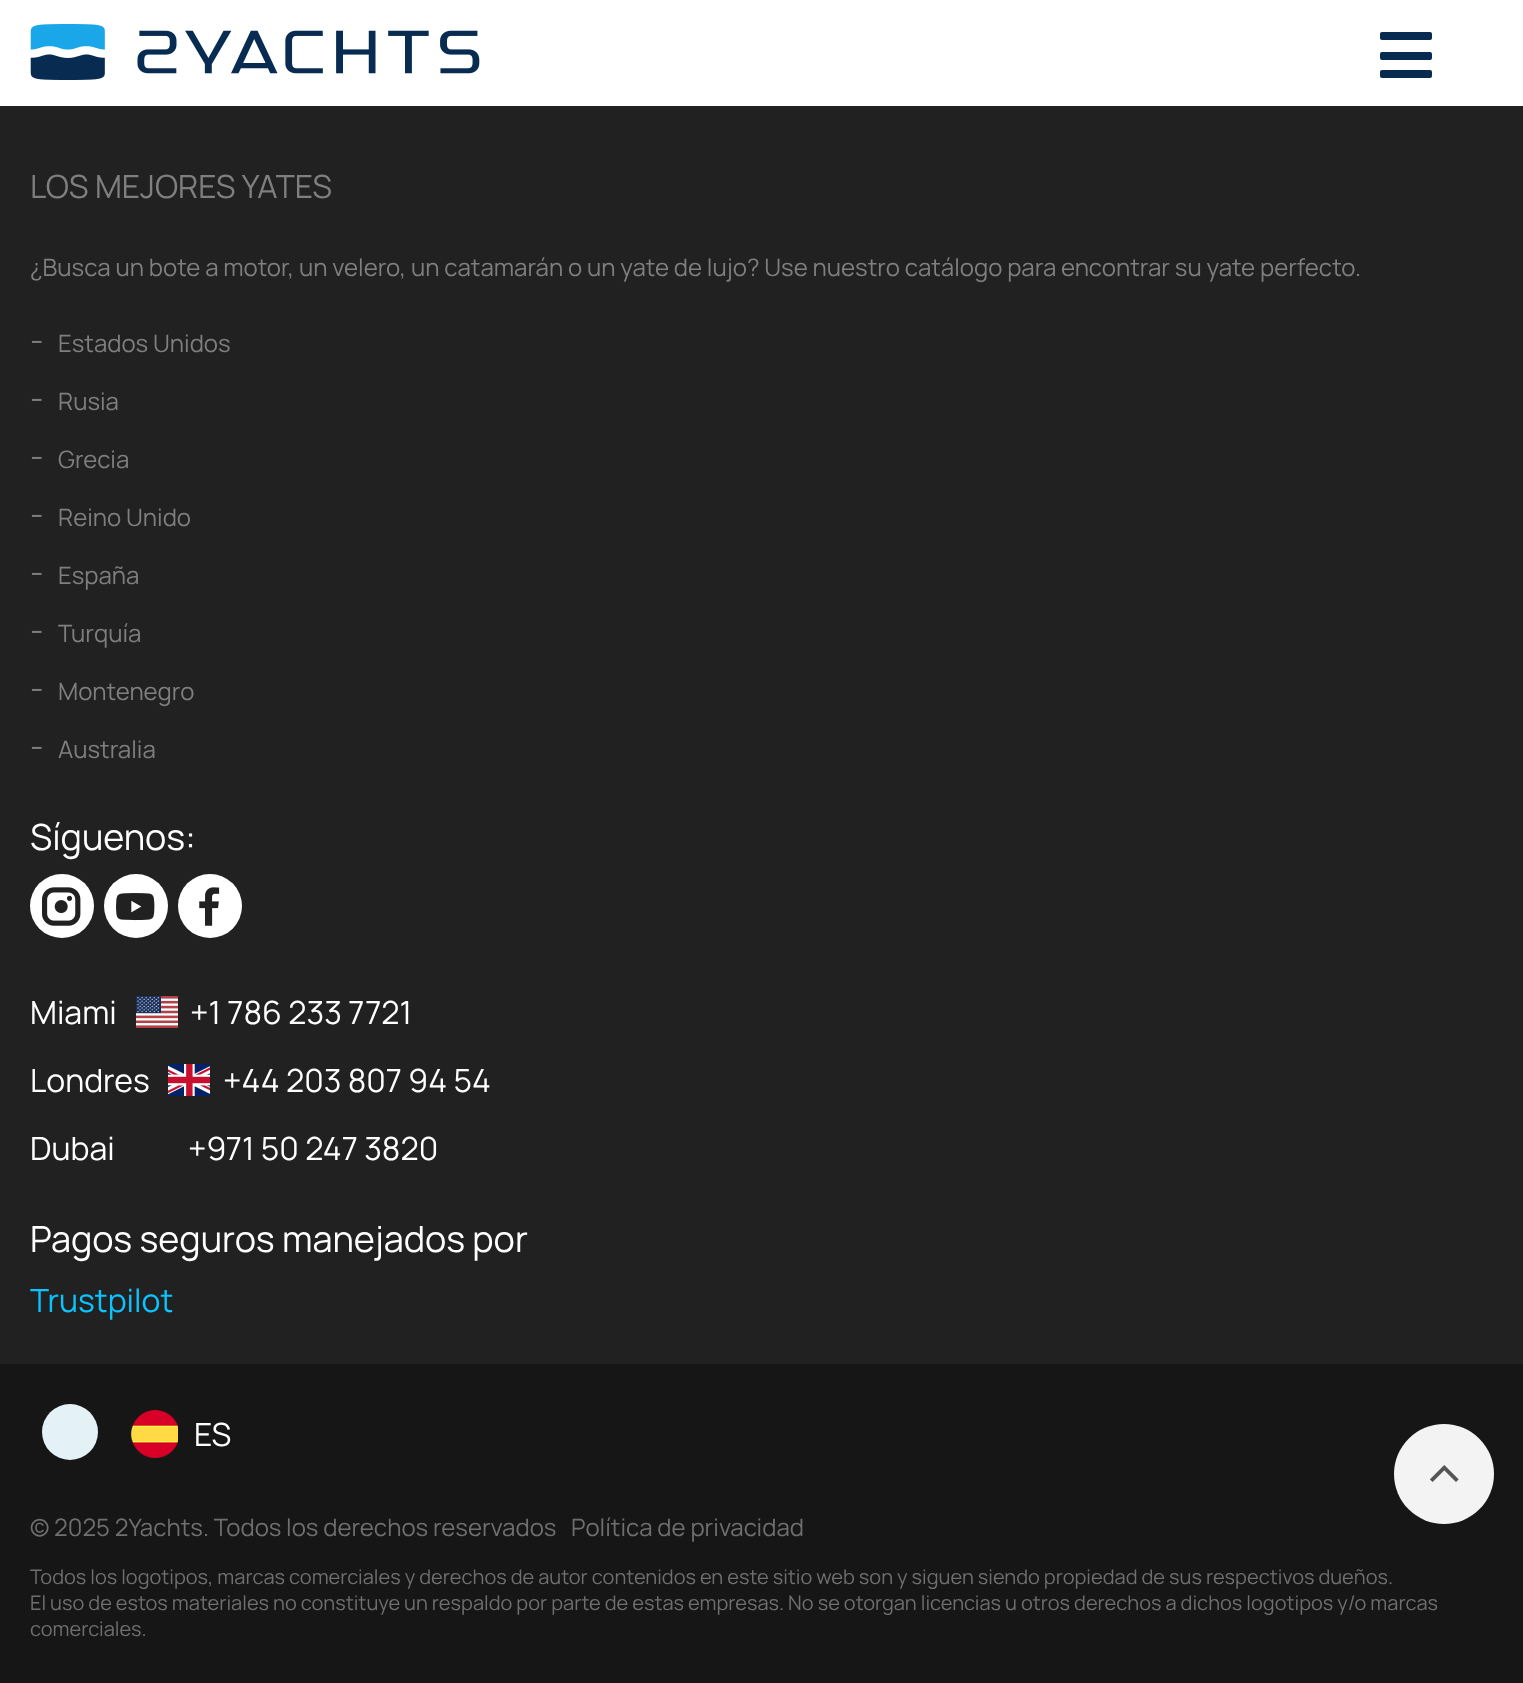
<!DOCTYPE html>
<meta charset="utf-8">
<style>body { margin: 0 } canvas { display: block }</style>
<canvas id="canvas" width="1523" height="1683"></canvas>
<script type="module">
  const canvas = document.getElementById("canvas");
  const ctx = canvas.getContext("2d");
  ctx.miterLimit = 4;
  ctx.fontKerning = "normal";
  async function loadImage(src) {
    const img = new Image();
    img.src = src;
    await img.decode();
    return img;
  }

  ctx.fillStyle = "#212121";
  ctx.fillRect(0, 0, 1523, 1683);
  ctx.fillStyle = "#ffffff";
  ctx.fillRect(0, 0, 1523, 106);
  ctx.drawImage(await loadImage("img1.png"), 30, 24, 450, 56);
  ctx.fillStyle = "#072b51";
  ctx.beginPath();
  ctx.roundRect(1380, 32, 52, 8, 2);
  ctx.fill();
  ctx.beginPath();
  ctx.roundRect(1380, 52, 52, 8, 2);
  ctx.fill();
  ctx.beginPath();
  ctx.roundRect(1380, 70, 52, 8, 2);
  ctx.fill();
  ctx.font = "32px Manrope";
  ctx.fillStyle = "#7f7f7f";
  ctx.fillText("LOS MEJORES YATES", 30, 198);
  ctx.font = "24px Manrope";
  ctx.fillText("¿Busca un bote a motor, un velero, un catamarán o un yate de lujo? Use nuestro catálogo para encontrar su yate perfecto.", 30, 276);
  ctx.font = "32px Manrope";
  ctx.fillText("-", 30, 352);
  ctx.font = "24px Manrope";
  ctx.fillText("Estados Unidos", 58, 352);
  ctx.font = "32px Manrope";
  ctx.fillText("-", 30, 410);
  ctx.font = "24px Manrope";
  ctx.fillText("Rusia", 58, 410);
  ctx.font = "32px Manrope";
  ctx.fillText("-", 30, 468);
  ctx.font = "24px Manrope";
  ctx.fillText("Grecia", 58, 468);
  ctx.font = "32px Manrope";
  ctx.fillText("-", 30, 526);
  ctx.font = "24px Manrope";
  ctx.fillText("Reino Unido", 58, 526);
  ctx.font = "32px Manrope";
  ctx.fillText("-", 30, 584);
  ctx.font = "24px Manrope";
  ctx.fillText("España", 58, 584);
  ctx.font = "32px Manrope";
  ctx.fillText("-", 30, 642);
  ctx.font = "24px Manrope";
  ctx.fillText("Turquía", 58, 642);
  ctx.font = "32px Manrope";
  ctx.fillText("-", 30, 700);
  ctx.font = "24px Manrope";
  ctx.fillText("Montenegro", 58, 700);
  ctx.font = "32px Manrope";
  ctx.fillText("-", 30, 758);
  ctx.font = "24px Manrope";
  ctx.fillText("Australia", 58, 758);
  ctx.font = "36px Manrope";
  ctx.fillStyle = "#ffffff";
  ctx.fillText("Síguenos:", 30, 850);
  ctx.beginPath();
  ctx.arc(62, 906, 32, 0, Math.PI * 2);
  ctx.fill();
  ctx.drawImage(await loadImage("img2.png"), 42, 887, 39, 39);
  ctx.beginPath();
  ctx.arc(136, 906, 32, 0, Math.PI * 2);
  ctx.fill();
  ctx.drawImage(await loadImage("img3.png"), 116, 893, 39, 28);
  ctx.beginPath();
  ctx.arc(210, 906, 32, 0, Math.PI * 2);
  ctx.fill();
  ctx.drawImage(await loadImage("img4.png"), 199, 887, 21, 39);
  ctx.font = "32px Manrope";
  ctx.fillText("Miami", 30, 1024);
  ctx.drawImage(await loadImage("img5.png"), 136, 996, 42, 32);
  ctx.fillText("+1 786 233 7721", 190, 1024);
  ctx.fillText("Londres", 30, 1092);
  ctx.drawImage(await loadImage("img6.png"), 168, 1064, 42, 32);
  ctx.fillText("+44 203 807 94 54", 223, 1092);
  ctx.fillText("Dubai", 30, 1160);
  ctx.fillText("+971 50 247 3820", 188, 1160);
  ctx.font = "36px Manrope";
  ctx.fillText("Pagos seguros manejados por", 30, 1252);
  ctx.font = "32px Manrope";
  ctx.fillStyle = "#09c4ff";
  ctx.fillText("Trustpilot", 30, 1312);
  ctx.fillStyle = "#161616";
  ctx.fillRect(0, 1364, 1523, 319);
  ctx.fillStyle = "#e4f2f8";
  ctx.beginPath();
  ctx.arc(70, 1432, 28, 0, Math.PI * 2);
  ctx.fill();
  ctx.drawImage(await loadImage("img7.png"), 131, 1410, 47, 48);
  ctx.fillStyle = "#ffffff";
  ctx.fillText("ES", 194, 1446);
  ctx.font = "24px Manrope";
  ctx.fillStyle = "#6f6f6f";
  ctx.fillText("© 2025 2Yachts. Todos los derechos reservados", 30, 1536);
  ctx.fillText("Política de privacidad", 571, 1536);
  ctx.font = "20px Manrope";
  ctx.fillText("Todos los logotipos, marcas comerciales y derechos de autor contenidos en este sitio web son y siguen siendo propiedad de sus respectivos dueños.", 30, 1584);
  ctx.fillText("El uso de estos materiales no constituye un respaldo por parte de estas empresas. No se otorgan licencias u otros derechos a dichos logotipos y/o marcas", 30, 1610);
  ctx.fillText("comerciales.", 30, 1636);
  ctx.fillStyle = "#f3f3f3";
  ctx.beginPath();
  ctx.arc(1444, 1474, 50, 0, Math.PI * 2);
  ctx.fill();
  ctx.drawImage(await loadImage("img8.png"), 1430, 1465, 29, 17);
</script>
